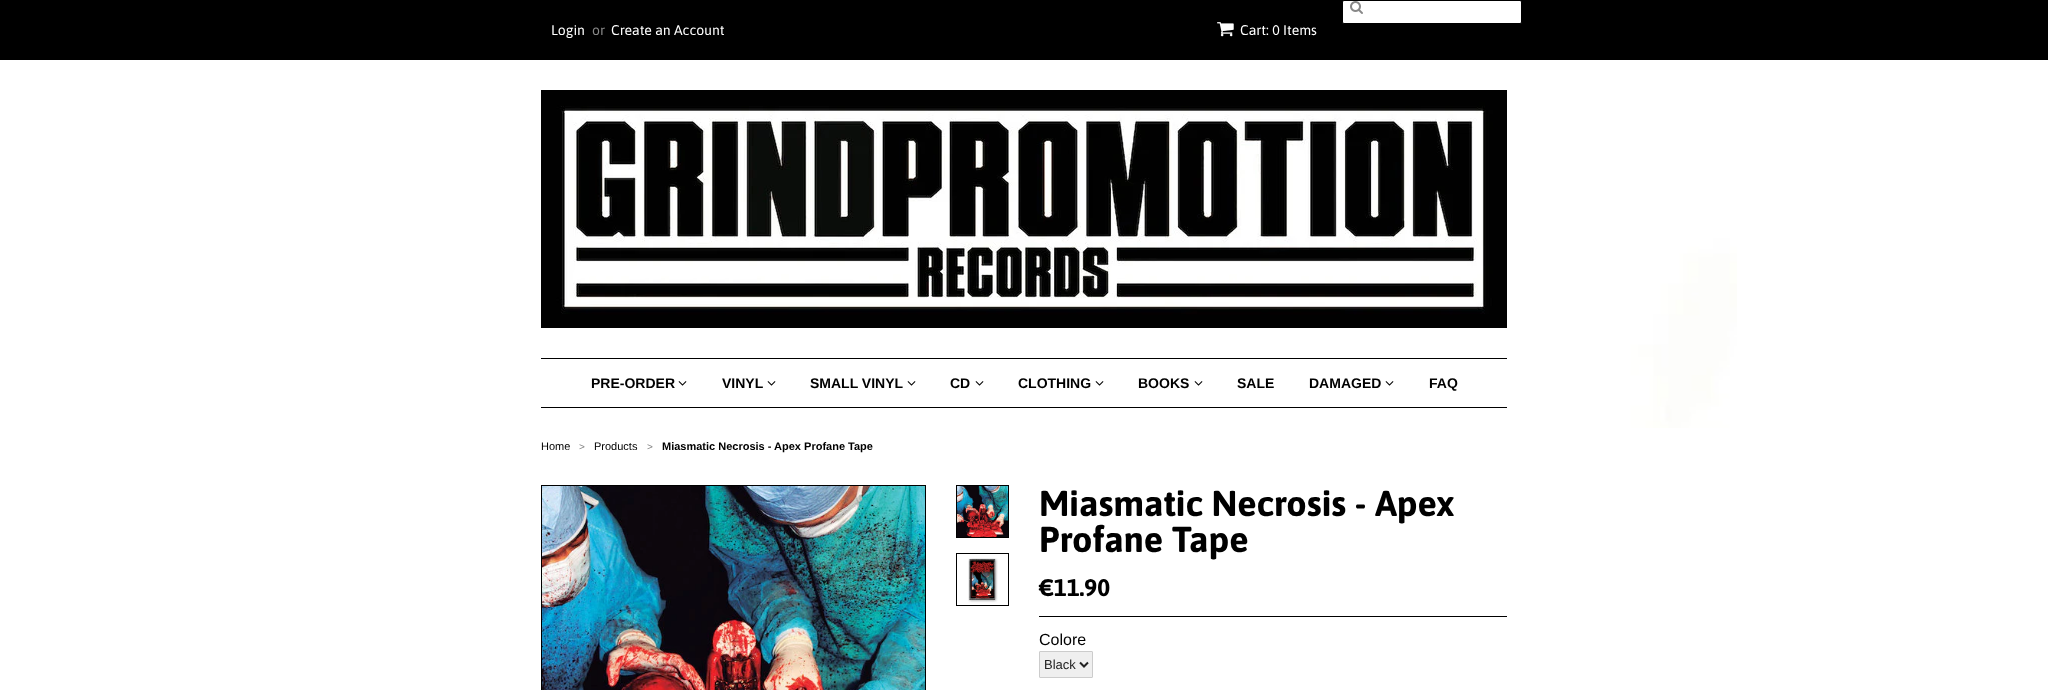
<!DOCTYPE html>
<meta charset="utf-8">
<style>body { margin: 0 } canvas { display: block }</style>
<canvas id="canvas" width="2048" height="690"></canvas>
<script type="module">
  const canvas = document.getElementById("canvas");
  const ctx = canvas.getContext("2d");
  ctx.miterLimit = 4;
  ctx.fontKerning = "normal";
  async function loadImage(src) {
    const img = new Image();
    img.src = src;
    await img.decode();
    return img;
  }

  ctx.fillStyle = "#ffffff";
  ctx.fillRect(0, 0, 2048, 690);
  ctx.drawImage(await loadImage("img1.png"), 1537, 60, 200, 368);
  ctx.fillStyle = "#000000";
  ctx.fillRect(0, 0, 2048, 60);
  ctx.fillStyle = "#ffffff";
  ctx.beginPath();
  ctx.roundRect(1342.5, 0.5, 179, 23, 1.5);
  ctx.fill();
  ctx.strokeStyle = "#000000";
  ctx.stroke();
  ctx.drawImage(await loadImage("img2.png"), 1350, 1, 13, 13);
  ctx.font = "14px Asap";
  ctx.fillText("Login", 551, 35);
  ctx.fillStyle = "#888888";
  ctx.fillText("or", 592, 35);
  ctx.fillStyle = "#ffffff";
  ctx.fillText("Create an Account", 611, 35);
  ctx.drawImage(await loadImage("img3.png"), 1217, 22, 17, 15);
  ctx.fillText("Cart: 0 Items", 1240, 35);
  ctx.drawImage(await loadImage("img4.png"), 541, 90, 966, 238);
  ctx.fillStyle = "#000000";
  ctx.fillRect(541, 358, 966, 1);
  ctx.fillRect(541, 407, 966, 1);
  ctx.font = "bold 14px Liberation Sans";
  ctx.fillText("PRE-ORDER", 591, 388);
  ctx.drawImage(await loadImage("img5.png"), 678, 381, 9, 5);
  ctx.fillText("VINYL", 722, 388);
  ctx.drawImage(await loadImage("img5.png"), 767, 381, 9, 5);
  ctx.fillText("SMALL VINYL", 810, 388);
  ctx.drawImage(await loadImage("img5.png"), 907, 381, 9, 5);
  ctx.fillText("CD", 950, 388);
  ctx.drawImage(await loadImage("img5.png"), 975, 381, 9, 5);
  ctx.fillText("CLOTHING", 1018, 388);
  ctx.drawImage(await loadImage("img5.png"), 1095, 381, 9, 5);
  ctx.fillText("BOOKS", 1138, 388);
  ctx.drawImage(await loadImage("img5.png"), 1194, 381, 9, 5);
  ctx.fillText("SALE", 1237, 388);
  ctx.fillText("DAMAGED", 1309, 388);
  ctx.drawImage(await loadImage("img5.png"), 1385, 381, 9, 5);
  ctx.fillText("FAQ", 1429, 388);
  ctx.font = "11px Liberation Sans";
  ctx.fillText("Home", 541, 450);
  ctx.font = "10px Liberation Sans";
  ctx.fillStyle = "#808080";
  ctx.fillText(">", 579, 450);
  ctx.font = "11px Liberation Sans";
  ctx.fillStyle = "#000000";
  ctx.fillText("Products", 594, 450);
  ctx.font = "10px Liberation Sans";
  ctx.fillStyle = "#808080";
  ctx.fillText(">", 647, 450);
  ctx.font = "bold 11px Liberation Sans";
  ctx.fillStyle = "#000000";
  ctx.fillText("Miasmatic Necrosis - Apex Profane Tape", 662, 450);
  ctx.strokeRect(541.5, 485.5, 384, 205);
  ctx.drawImage(await loadImage("img6.png"), 542, 486, 383, 204);
  ctx.strokeRect(956.5, 485.5, 52, 52);
  ctx.drawImage(await loadImage("img7.png"), 957, 486, 51, 51);
  ctx.strokeRect(956.5, 553.5, 52, 52);
  ctx.drawImage(await loadImage("img8.png"), 968, 558, 30, 45);
  ctx.font = "bold 36px Asap";
  ctx.fillText("Miasmatic Necrosis - Apex", 1039, 516);
  ctx.fillText("Profane Tape", 1039, 552);
  ctx.font = "bold 24px Asap";
  ctx.fillText("€11.90", 1039, 596);
  ctx.fillRect(1039, 616, 468, 1);
  ctx.font = "16px Liberation Sans";
  ctx.fillText("Colore", 1039, 645);
  ctx.fillStyle = "#efefef";
  ctx.beginPath();
  ctx.roundRect(1039.5, 651.5, 53, 26, 0.5);
  ctx.fill();
  ctx.strokeStyle = "#cccccc";
  ctx.stroke();
  ctx.beginPath();
  ctx.moveTo(1080, 662.5);
  ctx.lineTo(1084, 666.5);
  ctx.lineTo(1088, 662.5);
  ctx.strokeStyle = "#222222";
  ctx.lineWidth = 2;
  ctx.stroke();
  ctx.font = "13px Liberation Sans";
  ctx.fillStyle = "#222222";
  ctx.fillText("Black", 1044, 669);
</script>
